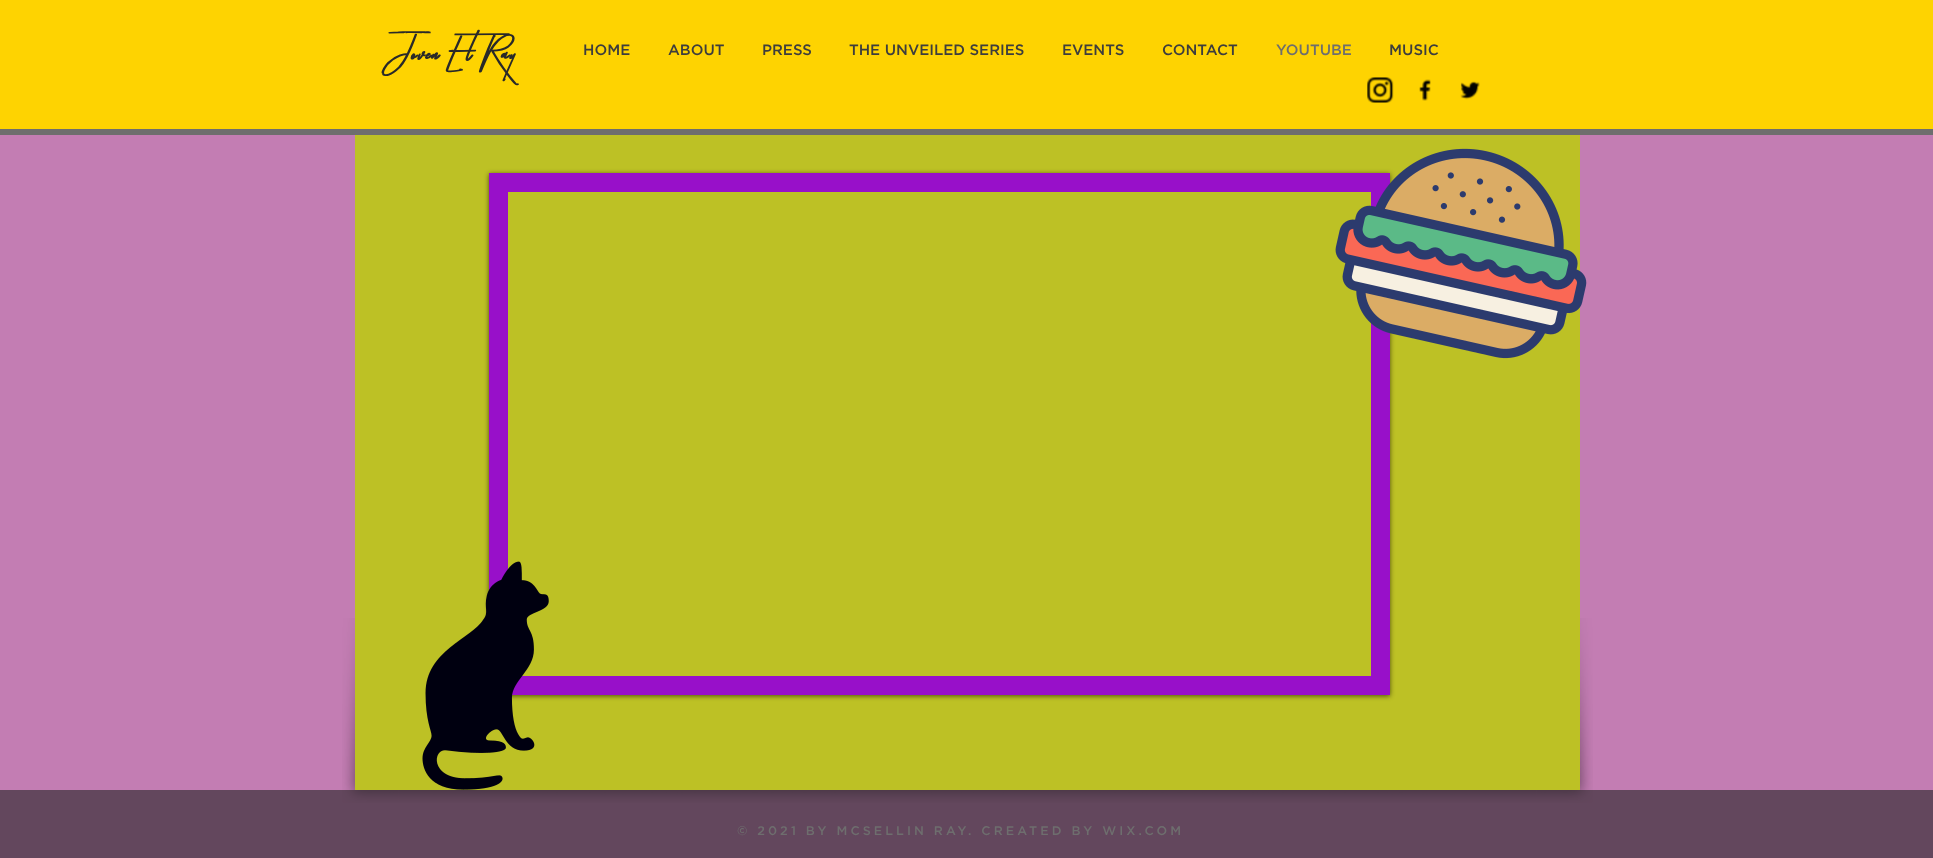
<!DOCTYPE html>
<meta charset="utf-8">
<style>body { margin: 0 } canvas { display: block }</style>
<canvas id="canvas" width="1933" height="858"></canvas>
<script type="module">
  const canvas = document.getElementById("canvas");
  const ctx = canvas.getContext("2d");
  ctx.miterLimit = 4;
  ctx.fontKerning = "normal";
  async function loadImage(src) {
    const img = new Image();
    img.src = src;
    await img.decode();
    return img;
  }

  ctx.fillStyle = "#c37db3";
  ctx.fillRect(0, 0, 1933, 858);
  ctx.fillStyle = "#fed301";
  ctx.fillRect(0, 0, 1933, 129);
  ctx.fillStyle = "#6e6e6e";
  ctx.fillRect(0, 129, 1933, 6);
  ctx.letterSpacing = "1.9px";
  ctx.font = "bold 37.5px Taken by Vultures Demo";
  ctx.fillStyle = "#292929";
  ctx.fillText("Joven El Ray", 404, 63);
  ctx.letterSpacing = "0px";
  ctx.font = "500 15px Gotham";
  ctx.fillStyle = "#3d3d3d";
  ctx.fillText("HOME", 583, 55);
  ctx.fillText("ABOUT", 668, 55);
  ctx.fillText("PRESS", 762, 55);
  ctx.fillText("THE UNVEILED SERIES", 849, 55);
  ctx.fillText("EVENTS", 1062, 55);
  ctx.fillText("CONTACT", 1162, 55);
  ctx.fillStyle = "#6e6e6e";
  ctx.fillText("YOUTUBE", 1276, 55);
  ctx.fillStyle = "#3d3d3d";
  ctx.fillText("MUSIC", 1389, 55);
  ctx.drawImage(await loadImage("img1.png"), 1367, 77, 27, 26);
  ctx.drawImage(await loadImage("img2.png"), 1419, 79, 12, 22);
  ctx.drawImage(await loadImage("img3.png"), 1460, 81, 20, 19);
  ctx.drawImage(await loadImage("img4.png"), 342, 618, 57, 185);
  ctx.drawImage(await loadImage("img5.png"), 398, 790, 1139, 13);
  ctx.drawImage(await loadImage("img6.png"), 1536, 618, 57, 185);
  ctx.fillStyle = "#bdc125";
  ctx.fillRect(355, 135, 1225, 655);
  ctx.save();
  ctx.beginPath();
  ctx.moveTo(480, 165);
  ctx.lineTo(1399, 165);
  ctx.lineTo(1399, 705);
  ctx.lineTo(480, 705);
  ctx.closePath();
  ctx.moveTo(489, 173);
  ctx.lineTo(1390, 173);
  ctx.lineTo(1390, 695);
  ctx.lineTo(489, 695);
  ctx.closePath();
  ctx.clip("evenodd");
  ctx.fillStyle = "rgba(0, 0, 0, 0.6)";
  ctx.filter = "blur(2.5px)";
  ctx.beginPath();
  ctx.rect(489, 174, 901, 522);
  ctx.fill();
  ctx.filter = "none";
  ctx.restore();
  ctx.strokeStyle = "#9810c9";
  ctx.lineWidth = 19;
  ctx.strokeRect(498.5, 182.5, 882, 503);
  ctx.drawImage(await loadImage("img7.png"), 1335, 148, 252, 211);
  ctx.drawImage(await loadImage("img8.png"), 422, 561, 127, 229);
  ctx.fillStyle = "rgba(35, 35, 35, 0.6)";
  ctx.fillRect(0, 790, 1933, 68);
  ctx.letterSpacing = "3.1px";
  ctx.font = "500 12.5px Gotham";
  ctx.fillStyle = "#6e6e6e";
  ctx.fillText("© 2021 BY MCSELLIN RAY. CREATED BY WIX.COM", 737, 835);
</script>
